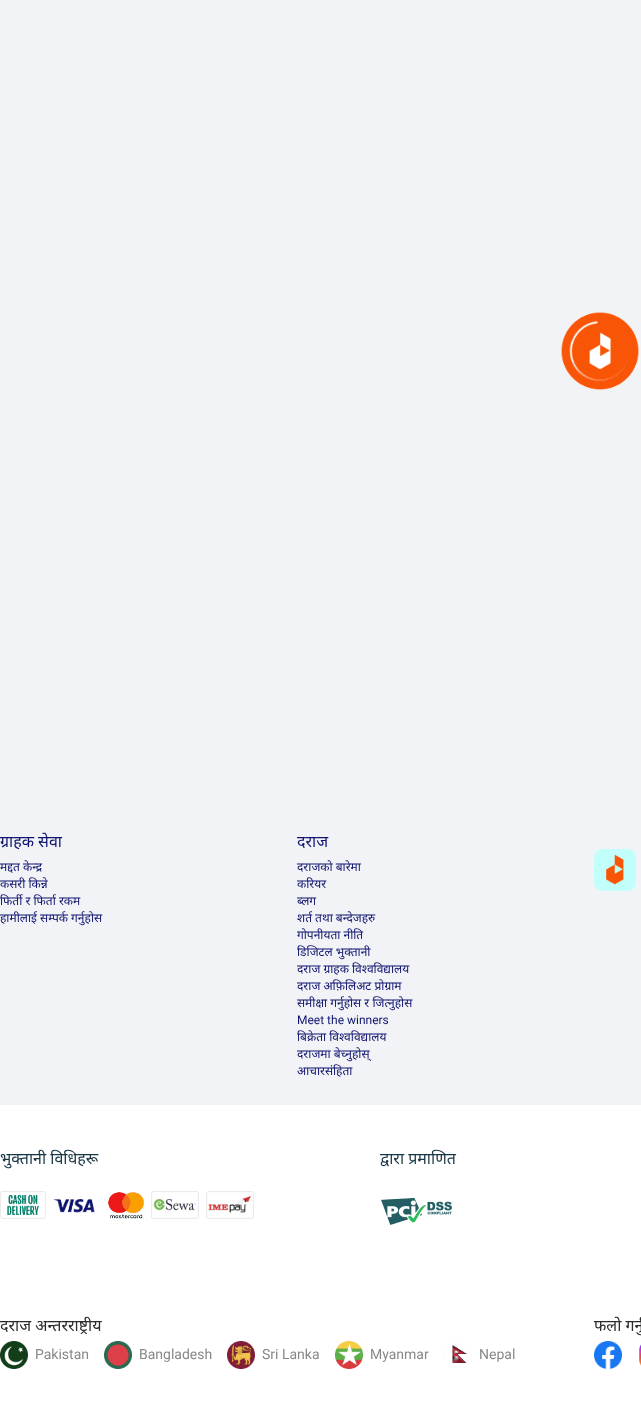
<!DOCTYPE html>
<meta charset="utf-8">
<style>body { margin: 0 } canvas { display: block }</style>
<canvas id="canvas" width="641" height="1409"></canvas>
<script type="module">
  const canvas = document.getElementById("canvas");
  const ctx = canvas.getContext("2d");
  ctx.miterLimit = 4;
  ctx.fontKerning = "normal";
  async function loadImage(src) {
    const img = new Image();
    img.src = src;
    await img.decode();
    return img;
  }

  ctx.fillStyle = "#f2f3f7";
  ctx.fillRect(0, 0, 641, 1409);
  ctx.drawImage(await loadImage("img1.png"), 561, 312, 78, 78);
  ctx.font = "16px Noto Sans";
  ctx.fillStyle = "#0f136d";
  ctx.fillText("ग्राहक सेवा", 0, 847);
  ctx.font = "12px Noto Sans";
  ctx.fillText("मद्दत केन्द्र", 0, 871);
  ctx.fillText("कसरी किन्ने", 0, 888);
  ctx.fillText("फिर्ती र फिर्ता रकम", 0, 905);
  ctx.fillText("हामीलाई सम्पर्क गर्नुहोस", 0, 922);
  ctx.font = "16px Noto Sans";
  ctx.fillText("दराज", 297, 847);
  ctx.font = "12px Noto Sans";
  ctx.fillText("दराजको बारेमा", 297, 871);
  ctx.fillText("करियर", 297, 888);
  ctx.fillText("ब्लग", 297, 905);
  ctx.fillText("शर्त तथा बन्देजहरु", 297, 922);
  ctx.save();
  ctx.beginPath();
  ctx.rect(297, 824, 297, 256);
  ctx.clip();
  ctx.fillText("गोपनीयता नीति", 297, 939);
  ctx.restore();
  ctx.fillText("डिजिटल भुक्तानी", 297, 956);
  ctx.fillText("दराज ग्राहक विश्वविद्यालय", 297, 973);
  ctx.fillText("दराज अफ़िलिअट प्रोग्राम", 297, 990);
  ctx.fillText("समीक्षा गर्नुहोस र जित्नुहोस", 297, 1007);
  ctx.font = "12px Roboto";
  ctx.fillText("Meet the winners", 297, 1024);
  ctx.font = "12px Noto Sans";
  ctx.fillText("बिक्रेता विश्वविद्यालय", 297, 1041);
  ctx.fillText("दराजमा बेच्नुहोस्", 297, 1058);
  ctx.fillText("आचारसंहिता", 297, 1075);
  ctx.drawImage(await loadImage("img2.png"), 594, 849, 42, 42);
  ctx.fillStyle = "#ffffff";
  ctx.fillRect(0, 1105, 641, 304);
  ctx.font = "16px Noto Sans";
  ctx.fillStyle = "#183544";
  ctx.fillText("भुक्तानी विधिहरू", 0, 1164);
  ctx.drawImage(await loadImage("img3.png"), 0, 1191, 46, 28);
  ctx.drawImage(await loadImage("img4.png"), 53, 1199, 42, 14);
  ctx.drawImage(await loadImage("img5.png"), 108, 1192, 36, 27);
  ctx.drawImage(await loadImage("img6.png"), 151, 1191, 48, 28);
  ctx.drawImage(await loadImage("img7.png"), 206, 1191, 48, 28);
  ctx.fillText("द्वारा प्रमाणित", 380, 1164);
  ctx.drawImage(await loadImage("img8.png"), 381, 1197, 71, 28);
  ctx.fillStyle = "#2a2a2a";
  ctx.fillText("दराज अन्तरराष्ट्रीय", 0, 1331);
  ctx.drawImage(await loadImage("img9.png"), 0, 1341, 28, 28);
  ctx.font = "14px Roboto";
  ctx.fillStyle = "#888888";
  ctx.fillText("Pakistan", 35, 1359);
  ctx.drawImage(await loadImage("img10.png"), 104, 1341, 28, 28);
  ctx.fillText("Bangladesh", 139, 1359);
  ctx.drawImage(await loadImage("img11.png"), 227, 1341, 28, 28);
  ctx.fillText("Sri Lanka", 262, 1359);
  ctx.drawImage(await loadImage("img12.png"), 335, 1341, 28, 28);
  ctx.fillText("Myanmar", 370, 1359);
  ctx.drawImage(await loadImage("img13.png"), 444, 1341, 28, 28);
  ctx.fillText("Nepal", 479, 1359);
  ctx.font = "16px Noto Sans";
  ctx.fillStyle = "#2a2a2a";
  ctx.fillText("फलो गर्नु", 594, 1331);
  ctx.drawImage(await loadImage("img14.png"), 594, 1341, 28, 28);
  ctx.drawImage(await loadImage("img15.png"), 639, 1344, 2, 22);
</script>
